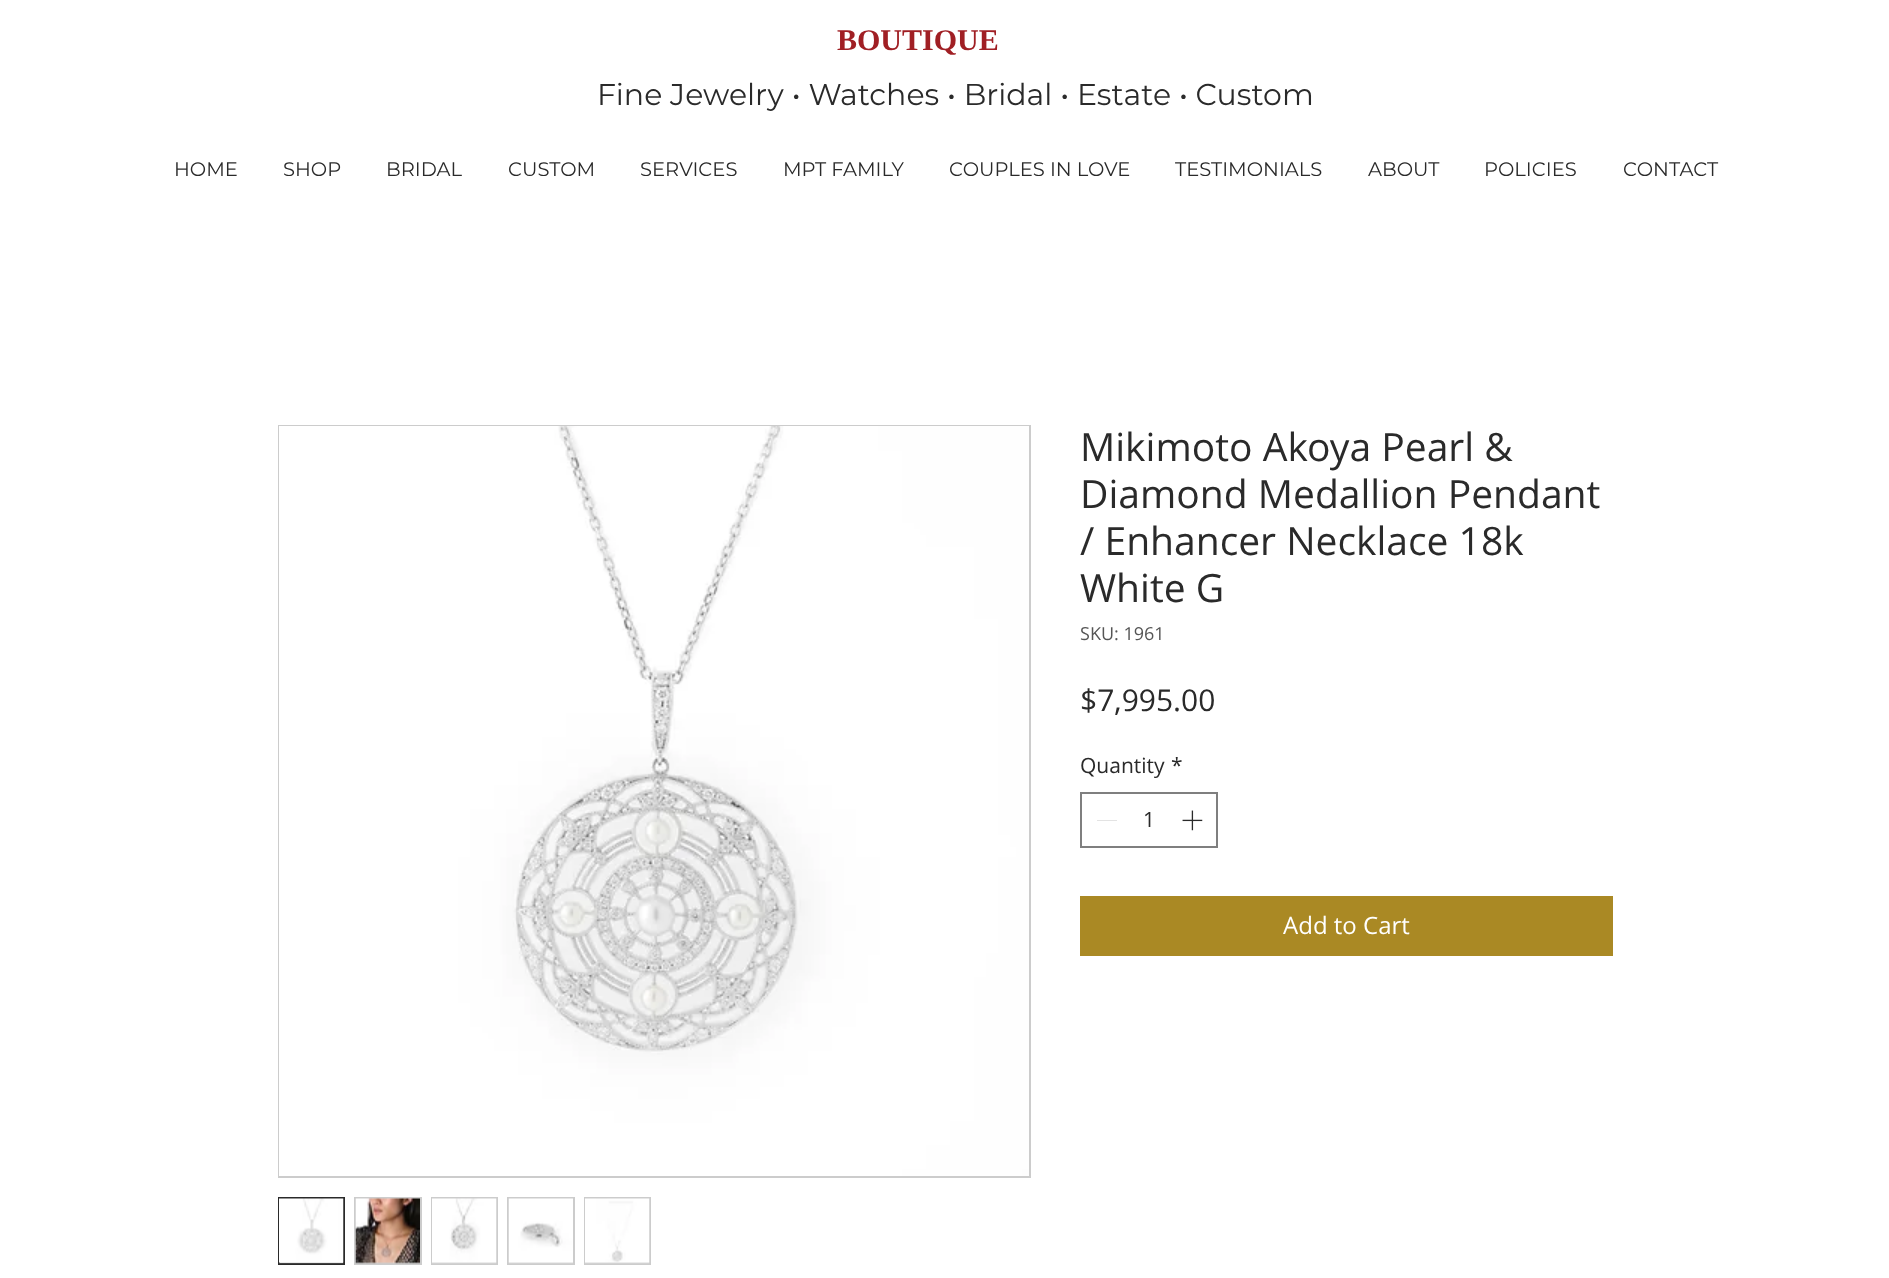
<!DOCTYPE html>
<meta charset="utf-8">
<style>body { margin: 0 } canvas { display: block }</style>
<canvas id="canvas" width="1889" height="1278"></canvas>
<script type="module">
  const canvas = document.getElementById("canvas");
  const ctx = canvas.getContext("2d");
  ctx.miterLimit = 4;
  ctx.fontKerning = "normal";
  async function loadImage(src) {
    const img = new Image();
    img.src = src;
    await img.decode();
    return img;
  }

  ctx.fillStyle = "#ffffff";
  ctx.fillRect(0, 0, 1889, 1278);
  ctx.font = "bold 30px Liberation Serif";
  ctx.fillStyle = "#a01f24";
  ctx.fillText("BOUTIQUE", 837, 50);
  ctx.font = "30px Montserrat";
  ctx.fillStyle = "#2a2a2a";
  ctx.fillText("Fine Jewelry • Watches • Bridal • Estate • Custom", 597, 105);
  ctx.font = "19.5px Montserrat";
  ctx.fillText("HOME", 174, 176);
  ctx.fillText("SHOP", 283, 176);
  ctx.fillText("BRIDAL", 386, 176);
  ctx.fillText("CUSTOM", 508, 176);
  ctx.fillText("SERVICES", 640, 176);
  ctx.fillText("MPT FAMILY", 783, 176);
  ctx.fillText("COUPLES IN LOVE", 949, 176);
  ctx.fillText("TESTIMONIALS", 1175, 176);
  ctx.fillText("ABOUT", 1368, 176);
  ctx.fillText("POLICIES", 1484, 176);
  ctx.fillText("CONTACT", 1623, 176);
  ctx.strokeStyle = "#cccccc";
  ctx.lineWidth = 2;
  ctx.strokeRect(279, 426, 751, 751);
  ctx.drawImage(await loadImage("img1.png"), 279, 426, 750, 750);
  ctx.fillStyle = "#cccccc";
  ctx.fillRect(280, 1262, 63, 1);
  ctx.strokeStyle = "#2a2a2a";
  ctx.strokeRect(279, 1198, 65, 66);
  ctx.drawImage(await loadImage("img2.png"), 279, 1198, 65, 66);
  ctx.fillRect(354, 1197, 68, 68);
  ctx.drawImage(await loadImage("img3.png"), 355, 1198, 65, 66);
  ctx.fillRect(431, 1197, 67, 68);
  ctx.drawImage(await loadImage("img4.png"), 432, 1198, 65, 66);
  ctx.fillRect(507, 1197, 68, 68);
  ctx.drawImage(await loadImage("img5.png"), 508, 1198, 65, 66);
  ctx.fillRect(584, 1197, 67, 68);
  ctx.drawImage(await loadImage("img6.png"), 585, 1198, 65, 66);
  ctx.font = "39px Open Sans";
  ctx.fillStyle = "#2a2a2a";
  ctx.fillText("Mikimoto Akoya Pearl &", 1080, 461);
  ctx.fillText("Diamond Medallion Pendant", 1080, 508);
  ctx.fillText("/ Enhancer Necklace 18k", 1080, 555);
  ctx.fillText("White G", 1080, 602);
  ctx.font = "18px Open Sans";
  ctx.fillStyle = "#555555";
  ctx.fillText("SKU: 1961", 1080, 640);
  ctx.font = "30px Open Sans";
  ctx.fillStyle = "#2a2a2a";
  ctx.fillText("$7,995.00", 1080, 711);
  ctx.font = "21px Open Sans";
  ctx.fillText("Quantity", 1080, 773);
  ctx.fillText("*", 1171, 773);
  ctx.strokeStyle = "#7f7f7f";
  ctx.strokeRect(1081, 793, 136, 54);
  ctx.fillStyle = "#e3e3e3";
  ctx.fillRect(1097, 820, 20, 1);
  ctx.fillStyle = "#2a2a2a";
  ctx.fillText("1", 1143, 827);
  ctx.drawImage(await loadImage("img7.png"), 1182, 810, 21, 21);
  ctx.fillStyle = "#aa8924";
  ctx.fillRect(1080, 896, 533, 60);
  ctx.font = "24px Open Sans";
  ctx.fillStyle = "#ffffff";
  ctx.fillText("Add to Cart", 1283, 934);
</script>
